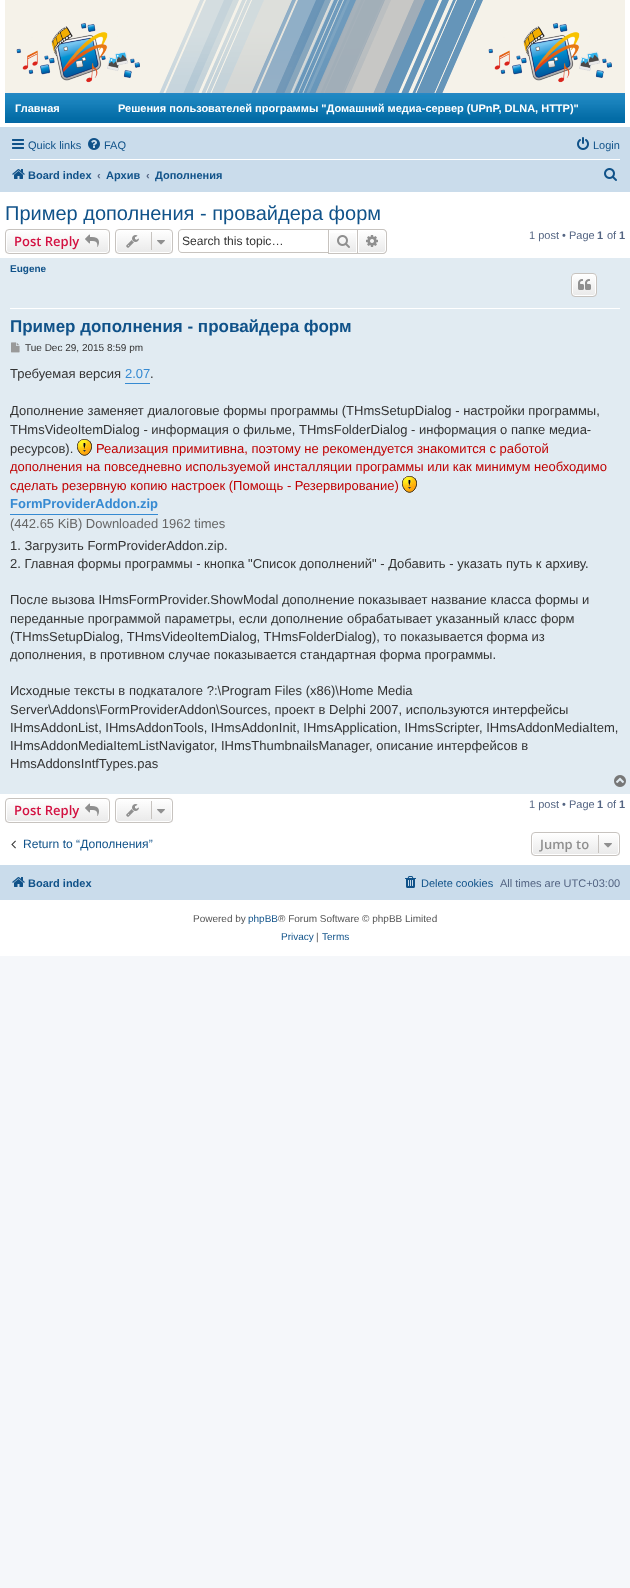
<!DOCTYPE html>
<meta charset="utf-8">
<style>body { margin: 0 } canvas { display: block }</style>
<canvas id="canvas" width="630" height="1588"></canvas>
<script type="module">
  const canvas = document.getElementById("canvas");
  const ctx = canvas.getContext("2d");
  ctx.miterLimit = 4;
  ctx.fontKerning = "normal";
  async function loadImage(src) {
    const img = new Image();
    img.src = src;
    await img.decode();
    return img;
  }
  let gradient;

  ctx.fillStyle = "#f5f7fa";
  ctx.fillRect(0, 0, 630, 1588);
  ctx.fillStyle = "#ffffff";
  ctx.fillRect(0, 0, 630, 956);
  ctx.fillStyle = "#f5f2e9";
  ctx.fillRect(5, 0, 620, 93);
  ctx.drawImage(await loadImage("img1.png"), 16, 23, 124, 60);
  ctx.drawImage(await loadImage("img2.png"), 159, 0, 324, 93);
  ctx.drawImage(await loadImage("img1.png"), 488, 23, 124, 60);
  ctx.drawImage(await loadImage("img3.png"), 5, 93, 620, 30);
  ctx.font = "bold 11px Liberation Sans";
  ctx.fillStyle = "#ffffff";
  ctx.fillText("Главная", 15, 112);
  ctx.fillText("Решения пользователей программы \"Домашний медиа-сервер (UPnP, DLNA, HTTP)\"", 118, 112);
  ctx.fillStyle = "#cadceb";
  ctx.fillRect(0, 127, 630, 65);
  ctx.drawImage(await loadImage("img4.png"), 12, 139, 12, 10);
  ctx.font = "11px Liberation Sans";
  ctx.fillStyle = "#105289";
  ctx.fillText("Quick links", 28, 149);
  ctx.drawImage(await loadImage("img5.png"), 88, 138, 12, 12);
  ctx.fillText("FAQ", 104, 149);
  ctx.drawImage(await loadImage("img6.png"), 577, 137, 12, 13);
  ctx.fillText("Login", 593, 149);
  ctx.fillStyle = "#ffffff";
  ctx.fillRect(10, 159, 610, 1);
  ctx.drawImage(await loadImage("img7.png"), 12, 169, 13, 10);
  ctx.font = "bold 11px Liberation Sans";
  ctx.fillStyle = "#105289";
  ctx.fillText("Board index", 28, 179);
  ctx.fillStyle = "#536482";
  ctx.fillText("‹", 97, 179);
  ctx.fillStyle = "#105289";
  ctx.fillText("Архив", 106, 179);
  ctx.fillStyle = "#536482";
  ctx.fillText("‹", 146, 179);
  ctx.fillStyle = "#105289";
  ctx.fillText("Дополнения", 155, 179);
  ctx.drawImage(await loadImage("img8.png"), 604, 168, 13, 13);
  ctx.font = "20px Liberation Sans";
  ctx.fillText("Пример дополнения - провайдера форм", 5, 220);
  ctx.save();
  ctx.beginPath();
  ctx.roundRect(5, 229, 105, 25, 4);
  ctx.clip();
  gradient = ctx.createLinearGradient(58, 230, 58, 253);
  gradient.addColorStop(0, "#ffffff");
  gradient.addColorStop(1, "#e9e9e9");
  ctx.fillStyle = gradient;
  ctx.fillRect(5, 230, 105, 23);
  ctx.restore();
  ctx.beginPath();
  ctx.roundRect(6.5, 230.5, 102, 22, 2.5);
  ctx.strokeStyle = "#ffffff";
  ctx.stroke();
  ctx.beginPath();
  ctx.roundRect(5.5, 229.5, 104, 24, 3.5);
  ctx.strokeStyle = "#c7c3bf";
  ctx.stroke();
  ctx.font = "600 13px Open Sans";
  ctx.fillStyle = "#d31141";
  ctx.fillText("Post Reply", 14, 246);
  ctx.drawImage(await loadImage("img9.png"), 85, 234, 14, 13);
  ctx.save();
  ctx.beginPath();
  ctx.roundRect(115, 229, 58, 25, 4);
  ctx.clip();
  gradient = ctx.createLinearGradient(144, 230, 144, 253);
  gradient.addColorStop(0, "#ffffff");
  gradient.addColorStop(1, "#e9e9e9");
  ctx.fillStyle = gradient;
  ctx.fillRect(115, 230, 58, 23);
  ctx.restore();
  ctx.beginPath();
  ctx.roundRect(116.5, 230.5, 55, 22, 2.5);
  ctx.strokeStyle = "#ffffff";
  ctx.stroke();
  ctx.beginPath();
  ctx.roundRect(115.5, 229.5, 57, 24, 3.5);
  ctx.strokeStyle = "#c7c3bf";
  ctx.stroke();
  ctx.drawImage(await loadImage("img10.png"), 126, 235, 13, 13);
  ctx.fillStyle = "#c7c3bf";
  ctx.fillRect(151, 232, 1, 18);
  ctx.drawImage(await loadImage("img11.png"), 157, 240, 8, 5);
  ctx.beginPath();
  ctx.moveTo(182, 229);
  ctx.lineTo(328, 229);
  ctx.lineTo(328, 253);
  ctx.lineTo(182, 253);
  ctx.bezierCurveTo(180, 253, 178, 251, 178, 249);
  ctx.lineTo(178, 233);
  ctx.bezierCurveTo(178, 231, 180, 229, 182, 229);
  ctx.closePath();
  ctx.moveTo(182, 230);
  ctx.lineTo(328, 230);
  ctx.lineTo(328, 252);
  ctx.lineTo(182, 252);
  ctx.bezierCurveTo(180, 252, 179, 251, 179, 249);
  ctx.lineTo(179, 233);
  ctx.bezierCurveTo(179, 231, 180, 230, 182, 230);
  ctx.closePath();
  ctx.fill("evenodd");
  ctx.font = "12.1px Liberation Sans";
  ctx.fillStyle = "#333333";
  ctx.fillText("Search this topic…", 182, 245);
  gradient = ctx.createLinearGradient(343, 230, 343, 253);
  gradient.addColorStop(0, "#ffffff");
  gradient.addColorStop(1, "#e9e9e9");
  ctx.fillStyle = gradient;
  ctx.fillRect(330, 233, 26, 19);
  ctx.strokeRect(328.5, 229.5, 29, 24);
  ctx.drawImage(await loadImage("img12.png"), 337, 235, 13, 13);
  gradient = ctx.createLinearGradient(372, 230, 372, 253);
  gradient.addColorStop(0, "#ffffff");
  gradient.addColorStop(1, "#e9e9e9");
  ctx.fillStyle = gradient;
  ctx.beginPath();
  ctx.roundRect(358.5, 230.5, 27, 22, [0, 2.5, 2.5, 0]);
  ctx.fill();
  ctx.strokeStyle = "#ffffff";
  ctx.stroke();
  ctx.fillStyle = "#c7c3bf";
  ctx.beginPath();
  ctx.moveTo(358, 229);
  ctx.lineTo(383, 229);
  ctx.bezierCurveTo(385, 229, 387, 231, 387, 233);
  ctx.lineTo(387, 250);
  ctx.bezierCurveTo(387, 252, 385, 254, 383, 254);
  ctx.lineTo(358, 254);
  ctx.closePath();
  ctx.moveTo(358, 230);
  ctx.lineTo(383, 230);
  ctx.bezierCurveTo(384.5, 230, 386, 231.5, 386, 233);
  ctx.lineTo(386, 250);
  ctx.bezierCurveTo(386, 251.5, 384.5, 253, 383, 253);
  ctx.lineTo(358, 253);
  ctx.closePath();
  ctx.fill("evenodd");
  ctx.drawImage(await loadImage("img13.png"), 366, 235, 12, 12);
  ctx.font = "11px Liberation Sans";
  ctx.fillStyle = "#536482";
  ctx.fillText("1 post • Page", 529, 239);
  ctx.font = "bold 11px Liberation Sans";
  ctx.fillText("1", 597, 239);
  ctx.font = "11px Liberation Sans";
  ctx.fillText("of", 607, 239);
  ctx.font = "bold 11px Liberation Sans";
  ctx.fillText("1", 619, 239);
  ctx.fillStyle = "#e1ebf2";
  ctx.fillRect(0, 258, 630, 536);
  ctx.fillStyle = "#ffffff";
  ctx.fillRect(10, 308, 610, 1);
  ctx.font = "bold 10px Liberation Sans";
  ctx.fillStyle = "#105289";
  ctx.fillText("Eugene", 10, 272);
  ctx.save();
  ctx.beginPath();
  ctx.roundRect(571, 273, 26, 24, 4);
  ctx.clip();
  gradient = ctx.createLinearGradient(584, 274, 584, 296);
  gradient.addColorStop(0, "#ffffff");
  gradient.addColorStop(1, "#e9e9e9");
  ctx.fillStyle = gradient;
  ctx.fillRect(571, 274, 26, 22);
  ctx.restore();
  ctx.beginPath();
  ctx.roundRect(572.5, 274.5, 23, 21, 2.5);
  ctx.stroke();
  ctx.beginPath();
  ctx.roundRect(571.5, 273.5, 25, 23, 3.5);
  ctx.strokeStyle = "#c7c3bf";
  ctx.stroke();
  ctx.drawImage(await loadImage("img14.png"), 578, 279, 13, 11);
  ctx.font = "bold 17px Liberation Sans";
  ctx.fillText("Пример дополнения - провайдера форм", 10, 332);
  ctx.drawImage(await loadImage("img15.png"), 11, 342, 9, 11);
  ctx.font = "10px Liberation Sans";
  ctx.fillStyle = "#333333";
  ctx.fillText("Tue Dec 29, 2015 8:59 pm", 25, 351);
  ctx.font = "13px Liberation Sans";
  ctx.fillText("Требуемая версия", 10, 378);
  ctx.fillStyle = "#368ad2";
  ctx.fillRect(125, 383, 25, 1);
  ctx.fillText("2.07", 125, 378);
  ctx.fillStyle = "#333333";
  ctx.fillText(".", 150, 378);
  ctx.fillText("Дополнение заменяет диалоговые формы программы (THmsSetupDialog - настройки программы,", 10, 415);
  ctx.fillText("THmsVideoItemDialog - информация о фильме, THmsFolderDialog - информация о папке медиа-", 10, 434);
  ctx.fillText("ресурсов).", 10, 453);
  ctx.drawImage(await loadImage("img16.png"), 77, 439, 15, 17);
  ctx.fillStyle = "#bf0000";
  ctx.fillText("Реализация примитивна, поэтому не рекомендуется знакомится с работой", 96, 453);
  ctx.fillText("дополнения на повседневно используемой инсталляции программы или как минимум необходимо", 10, 471);
  ctx.fillText("сделать резервную копию настроек (Помощь - Резервирование)", 10, 490);
  ctx.drawImage(await loadImage("img16.png"), 402, 476, 15, 17);
  ctx.fillStyle = "#368ad2";
  ctx.fillRect(10, 514, 148, 1);
  ctx.font = "bold 13px Liberation Sans";
  ctx.fillText("FormProviderAddon.zip", 10, 508);
  ctx.font = "13px Liberation Sans";
  ctx.fillStyle = "#666666";
  ctx.fillText("(442.65 KiB) Downloaded 1962 times", 10, 528);
  ctx.fillStyle = "#333333";
  ctx.fillText("1. Загрузить FormProviderAddon.zip.", 10, 550);
  ctx.fillText("2. Главная формы программы - кнопка \"Список дополнений\" - Добавить - указать путь к архиву.", 10, 568);
  ctx.fillText("После вызова IHmsFormProvider.ShowModal дополнение показывает название класса формы и", 10, 604);
  ctx.fillText("переданные программой параметры, если дополнение обрабатывает указанный класс форм", 10, 623);
  ctx.fillText("(THmsSetupDialog, THmsVideoItemDialog, THmsFolderDialog), то показывается форма из", 10, 641);
  ctx.fillText("дополнения, в противном случае показывается стандартная форма программы.", 10, 659);
  ctx.fillText("Исходные тексты в подкаталоге ?:\\Program Files (x86)\\Home Media", 10, 695);
  ctx.fillText("Server\\Addons\\FormProviderAddon\\Sources, проект в Delphi 2007, используются интерфейсы", 10, 714);
  ctx.fillText("IHmsAddonList, IHmsAddonTools, IHmsAddonInit, IHmsApplication, IHmsScripter, IHmsAddonMediaItem,", 10, 732);
  ctx.fillText("IHmsAddonMediaItemListNavigator, IHmsThumbnailsManager, описание интерфейсов в", 10, 750);
  ctx.fillText("HmsAddonsIntfTypes.pas", 10, 768);
  ctx.drawImage(await loadImage("img17.png"), 614, 775, 12, 12);
  ctx.save();
  ctx.beginPath();
  ctx.roundRect(5, 798, 105, 25, 4);
  ctx.clip();
  gradient = ctx.createLinearGradient(58, 799, 58, 822);
  gradient.addColorStop(0, "#ffffff");
  gradient.addColorStop(1, "#e9e9e9");
  ctx.fillStyle = gradient;
  ctx.fillRect(5, 799, 105, 23);
  ctx.restore();
  ctx.beginPath();
  ctx.roundRect(6.5, 799.5, 102, 22, 2.5);
  ctx.strokeStyle = "#ffffff";
  ctx.stroke();
  ctx.beginPath();
  ctx.roundRect(5.5, 798.5, 104, 24, 3.5);
  ctx.strokeStyle = "#c7c3bf";
  ctx.stroke();
  ctx.font = "600 13px Open Sans";
  ctx.fillStyle = "#d31141";
  ctx.fillText("Post Reply", 14, 815);
  ctx.drawImage(await loadImage("img9.png"), 85, 803, 14, 13);
  ctx.save();
  ctx.beginPath();
  ctx.roundRect(115, 798, 58, 25, 4);
  ctx.clip();
  gradient = ctx.createLinearGradient(144, 799, 144, 822);
  gradient.addColorStop(0, "#ffffff");
  gradient.addColorStop(1, "#e9e9e9");
  ctx.fillStyle = gradient;
  ctx.fillRect(115, 799, 58, 23);
  ctx.restore();
  ctx.beginPath();
  ctx.roundRect(116.5, 799.5, 55, 22, 2.5);
  ctx.strokeStyle = "#ffffff";
  ctx.stroke();
  ctx.beginPath();
  ctx.roundRect(115.5, 798.5, 57, 24, 3.5);
  ctx.strokeStyle = "#c7c3bf";
  ctx.stroke();
  ctx.drawImage(await loadImage("img10.png"), 126, 804, 13, 13);
  ctx.fillStyle = "#c7c3bf";
  ctx.fillRect(151, 801, 1, 18);
  ctx.drawImage(await loadImage("img11.png"), 157, 809, 8, 5);
  ctx.font = "11px Liberation Sans";
  ctx.fillStyle = "#536482";
  ctx.fillText("1 post • Page", 529, 808);
  ctx.font = "bold 11px Liberation Sans";
  ctx.fillText("1", 597, 808);
  ctx.font = "11px Liberation Sans";
  ctx.fillText("of", 607, 808);
  ctx.font = "bold 11px Liberation Sans";
  ctx.fillText("1", 619, 808);
  ctx.drawImage(await loadImage("img18.png"), 11, 840, 5, 9);
  ctx.font = "12.1px Liberation Sans";
  ctx.fillStyle = "#105289";
  ctx.fillText("Return to “Дополнения”", 23, 848);
  ctx.save();
  ctx.beginPath();
  ctx.roundRect(531, 832, 89, 24, 4);
  ctx.clip();
  gradient = ctx.createLinearGradient(576, 833, 576, 855);
  gradient.addColorStop(0, "#ffffff");
  gradient.addColorStop(1, "#e9e9e9");
  ctx.fillStyle = gradient;
  ctx.fillRect(531, 833, 89, 22);
  ctx.restore();
  ctx.beginPath();
  ctx.roundRect(532.5, 833.5, 86, 21, 2.5);
  ctx.strokeStyle = "#ffffff";
  ctx.stroke();
  ctx.beginPath();
  ctx.roundRect(531.5, 832.5, 88, 23, 3.5);
  ctx.strokeStyle = "#c7c3bf";
  ctx.stroke();
  ctx.font = "600 13px Open Sans";
  ctx.fillStyle = "#8f8f8f";
  ctx.fillText("Jump to", 540, 849);
  ctx.fillStyle = "#c7c3bf";
  ctx.fillRect(598, 835, 1, 18);
  ctx.drawImage(await loadImage("img11.png"), 604, 843, 8, 5);
  ctx.fillStyle = "#cadceb";
  ctx.fillRect(0, 865, 630, 35);
  ctx.drawImage(await loadImage("img7.png"), 12, 877, 13, 10);
  ctx.font = "bold 11px Liberation Sans";
  ctx.fillStyle = "#105289";
  ctx.fillText("Board index", 28, 887);
  ctx.drawImage(await loadImage("img19.png"), 405, 876, 11, 12);
  ctx.font = "11px Liberation Sans";
  ctx.fillText("Delete cookies", 421, 887);
  ctx.fillStyle = "#536482";
  ctx.fillText("All times are UTC+03:00", 500, 887);
  ctx.font = "10px Liberation Sans";
  ctx.fillStyle = "#555555";
  ctx.fillText("Powered by", 193, 922);
  ctx.fillStyle = "#105289";
  ctx.fillText("phpBB", 248, 922);
  ctx.fillStyle = "#555555";
  ctx.fillText("® Forum Software © phpBB Limited", 278, 922);
  ctx.fillStyle = "#105289";
  ctx.fillText("Privacy", 281, 940);
  ctx.fillStyle = "#555555";
  ctx.fillText("|", 316, 940);
  ctx.fillStyle = "#105289";
  ctx.fillText("Terms", 322, 940);
</script>
